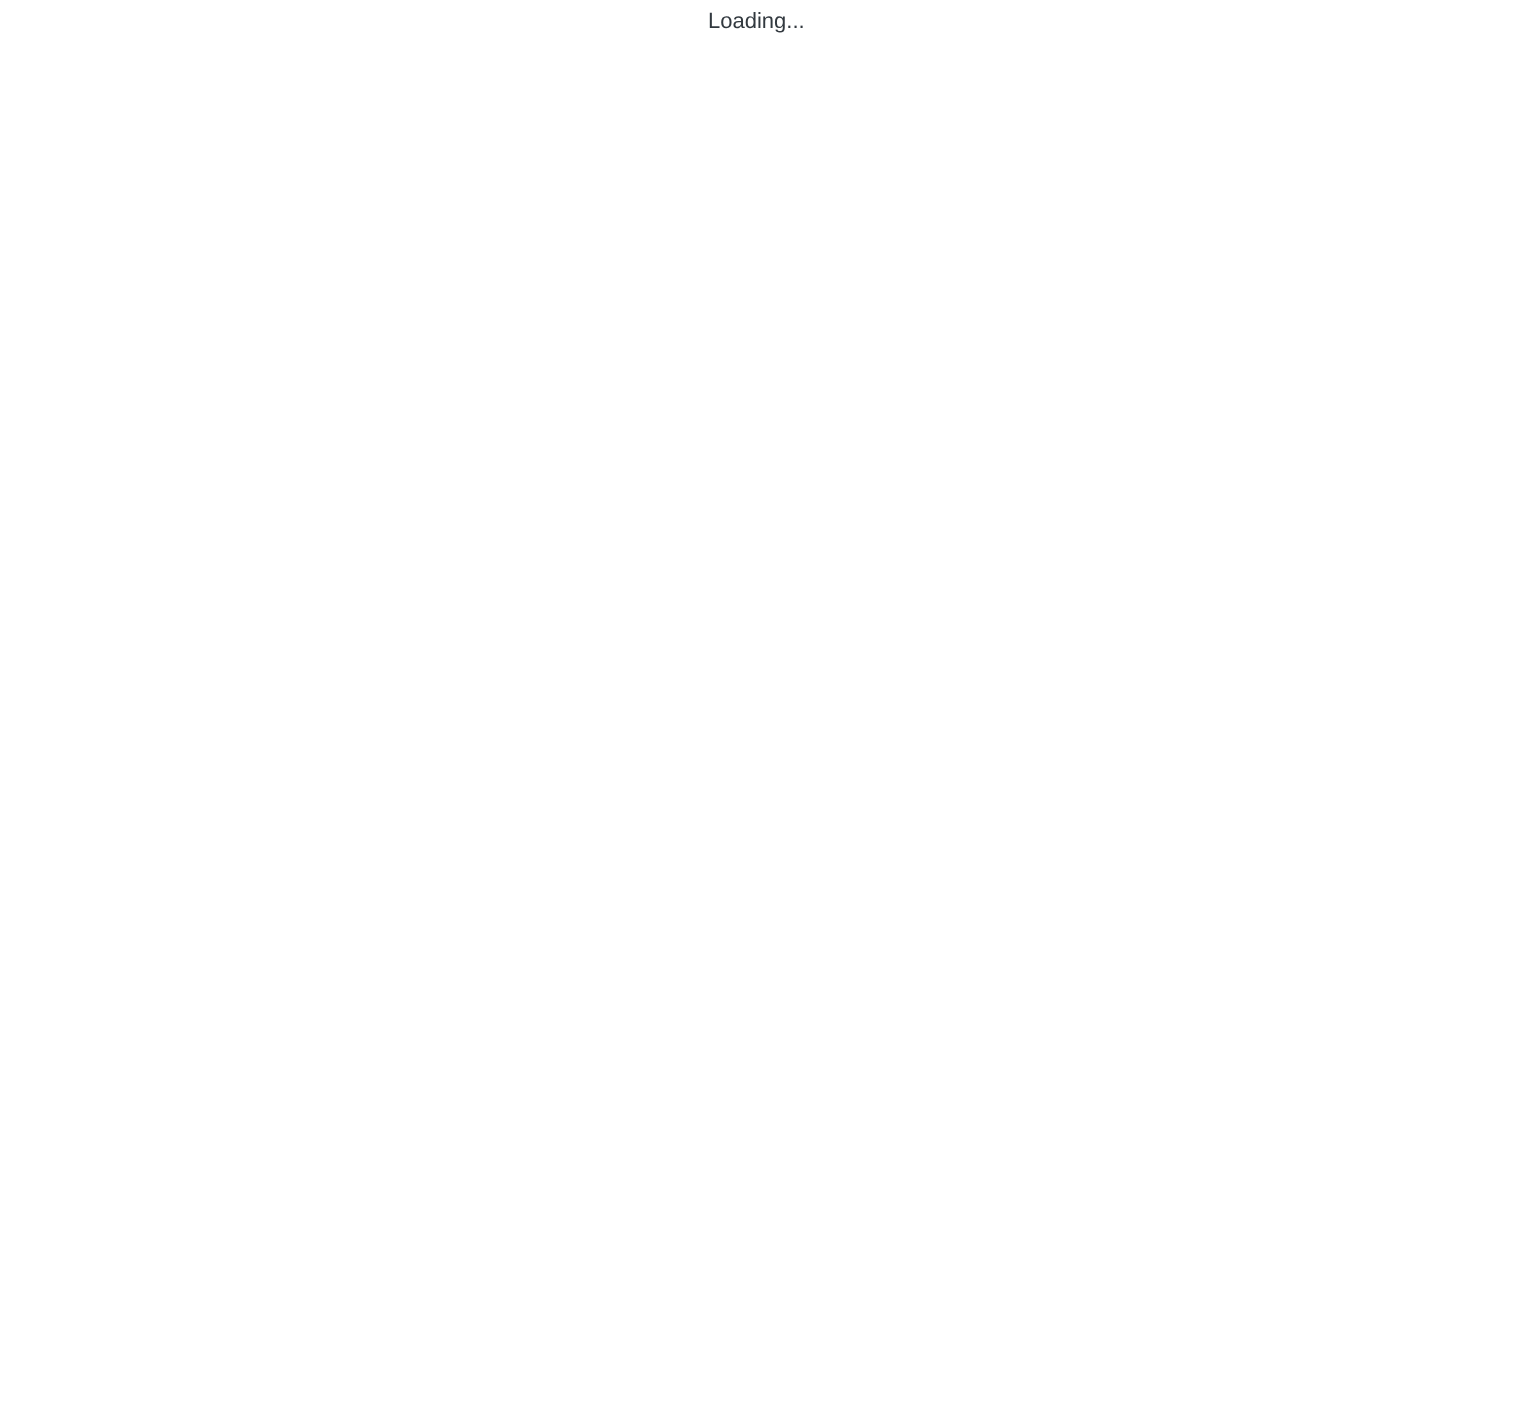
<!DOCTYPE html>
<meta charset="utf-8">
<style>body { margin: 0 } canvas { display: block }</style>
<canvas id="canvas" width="1513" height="1414"></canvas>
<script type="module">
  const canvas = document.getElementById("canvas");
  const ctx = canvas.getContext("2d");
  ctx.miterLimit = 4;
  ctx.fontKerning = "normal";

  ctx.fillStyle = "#ffffff";
  ctx.fillRect(0, 0, 1513, 1414);
  ctx.font = "22px Liberation Sans";
  ctx.fillStyle = "#32393f";
  ctx.fillText("Loading...", 708, 28);
</script>
